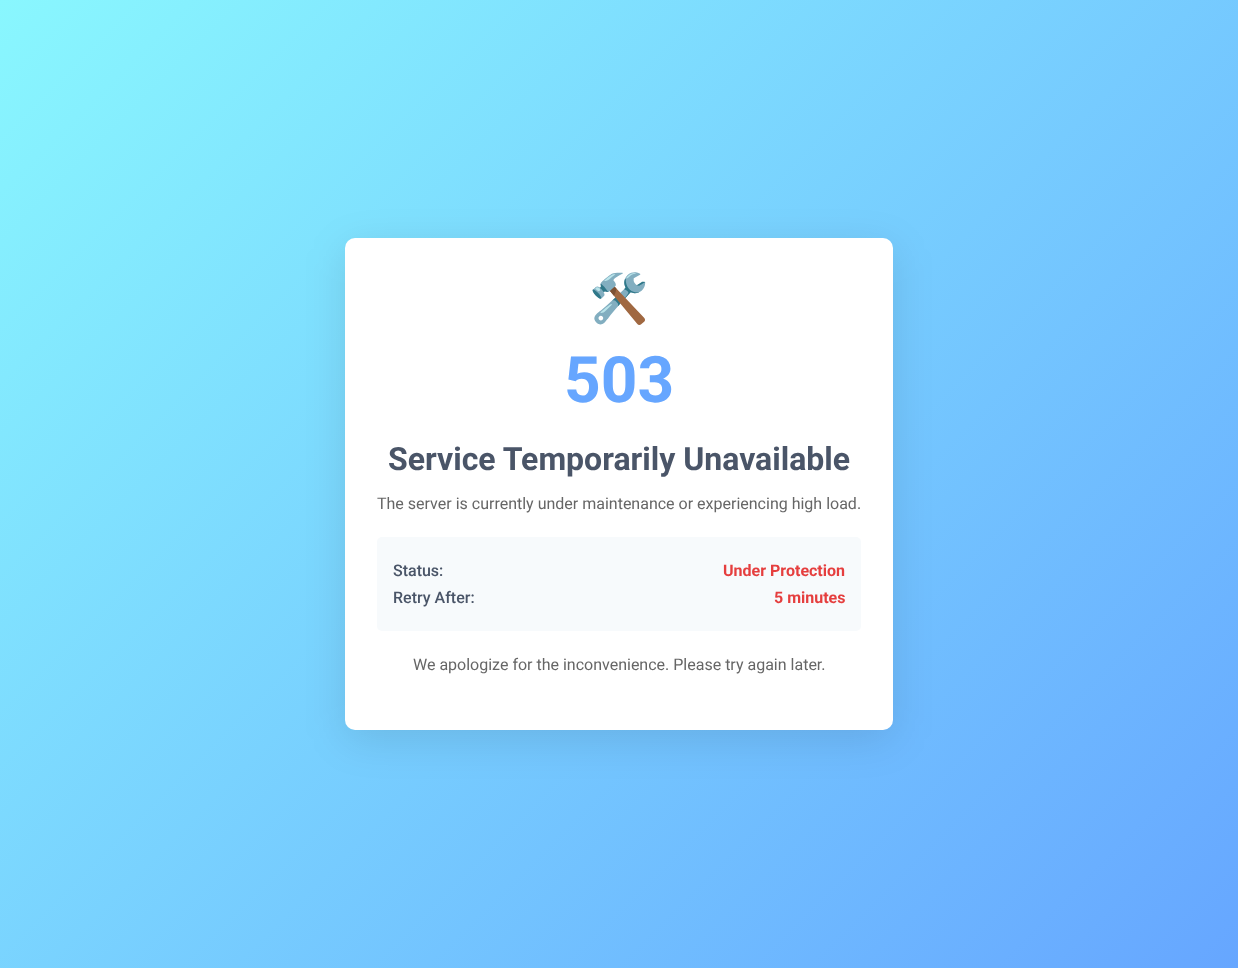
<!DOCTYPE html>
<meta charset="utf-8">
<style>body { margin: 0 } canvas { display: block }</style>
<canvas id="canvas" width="1238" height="968"></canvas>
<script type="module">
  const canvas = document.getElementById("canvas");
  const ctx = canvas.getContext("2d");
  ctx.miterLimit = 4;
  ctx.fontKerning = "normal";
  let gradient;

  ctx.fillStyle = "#ffffff";
  ctx.fillRect(0, 0, 1238, 968);
  gradient = ctx.createLinearGradient(67, -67, 1171, 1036);
  gradient.addColorStop(0, "#89f7fe");
  gradient.addColorStop(1, "#66a6ff");
  ctx.fillStyle = gradient;
  ctx.fillRect(0, 0, 1238, 968);
  ctx.fillStyle = "rgba(0, 0, 0, 0.1)";
  ctx.filter = "blur(20px)";
  ctx.beginPath();
  ctx.roundRect(345, 248, 548, 492, 10);
  ctx.fill();
  ctx.filter = "none";
  ctx.fillStyle = "#ffffff";
  ctx.beginPath();
  ctx.roundRect(345, 238, 548, 492, 10);
  ctx.fill();
  ctx.font = "48px Noto Color Emoji";
  ctx.fillStyle = "#000000";
  ctx.fillText("🛠️", 589, 315);
  ctx.font = "bold 64px Roboto";
  ctx.fillStyle = "#66a6ff";
  ctx.fillText("503", 564, 402);
  ctx.font = "bold 32px Roboto";
  ctx.fillStyle = "#4a5568";
  ctx.fillText("Service Temporarily Unavailable", 388, 470);
  ctx.font = "16px Roboto";
  ctx.fillStyle = "#666666";
  ctx.fillText("The server is currently under maintenance or experiencing high load.", 377, 509);
  ctx.fillStyle = "#f7fafc";
  ctx.beginPath();
  ctx.roundRect(377, 537, 484, 94, 5);
  ctx.fill();
  ctx.font = "500 16px Roboto";
  ctx.fillStyle = "#4a5568";
  ctx.fillText("Status:", 393, 576);
  ctx.font = "bold 16px Roboto";
  ctx.fillStyle = "#e53e3e";
  ctx.fillText("Under Protection", 723, 576);
  ctx.font = "500 16px Roboto";
  ctx.fillStyle = "#4a5568";
  ctx.fillText("Retry After:", 393, 603);
  ctx.font = "bold 16px Roboto";
  ctx.fillStyle = "#e53e3e";
  ctx.fillText("5 minutes", 774, 603);
  ctx.font = "16px Roboto";
  ctx.fillStyle = "#666666";
  ctx.fillText("We apologize for the inconvenience. Please try again later.", 413, 670);
</script>
